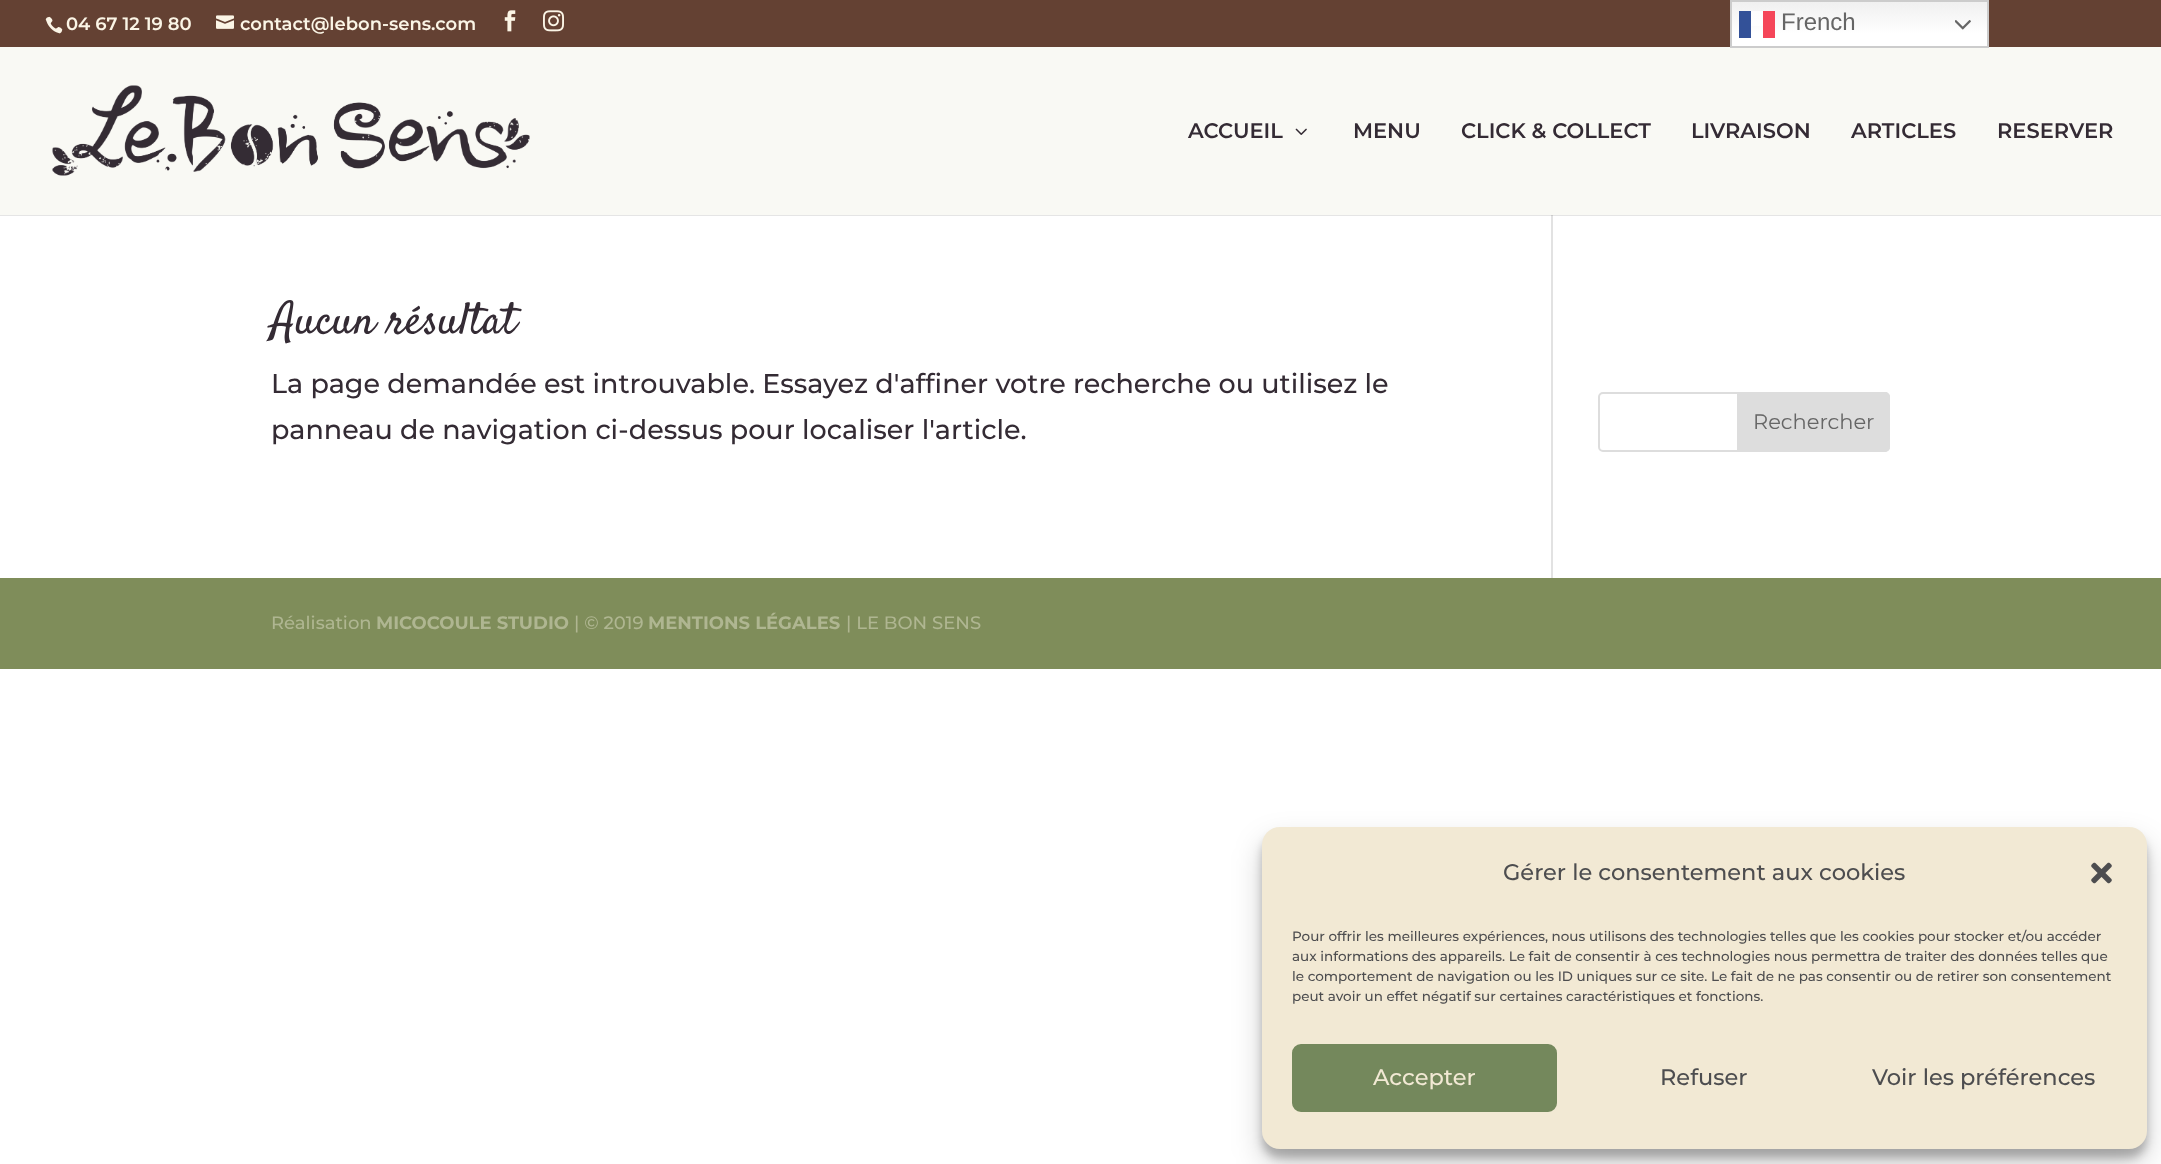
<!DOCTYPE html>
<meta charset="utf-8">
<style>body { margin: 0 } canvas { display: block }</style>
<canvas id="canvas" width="2161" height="1164"></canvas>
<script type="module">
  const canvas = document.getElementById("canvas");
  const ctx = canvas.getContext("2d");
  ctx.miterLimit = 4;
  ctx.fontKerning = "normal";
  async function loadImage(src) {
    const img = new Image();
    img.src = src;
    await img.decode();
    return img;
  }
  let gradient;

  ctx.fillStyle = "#ffffff";
  ctx.fillRect(0, 0, 2161, 1164);
  ctx.fillStyle = "#644133";
  ctx.fillRect(0, 0, 2161, 47);
  gradient = ctx.createLinearGradient(1859, 0, 1859, 48);
  gradient.addColorStop(0, "#efefef");
  gradient.addColorStop(0.7, "#ffffff");
  ctx.fillStyle = gradient;
  ctx.fillRect(1732, 2, 255, 44);
  gradient = ctx.createLinearGradient(1859, 0, 1859, 48);
  gradient.addColorStop(0, "#fcfcfc");
  gradient.addColorStop(0.7, "#ffffff");
  ctx.fillStyle = gradient;
  ctx.fillRect(1751, 11, 12, 15);
  ctx.fillStyle = "#e2e2e2";
  ctx.fillRect(1551, 215, 2, 363);
  ctx.fillStyle = "rgba(0, 0, 0, 0.1)";
  ctx.beginPath();
  ctx.moveTo(0, 214);
  ctx.lineTo(0, 216);
  ctx.lineTo(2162, 216);
  ctx.lineTo(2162, 48);
  ctx.lineTo(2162, 214);
  ctx.closePath();
  ctx.fill();
  ctx.fillStyle = "#f9f9f4";
  ctx.fillRect(0, 47, 2161, 168);
  ctx.strokeStyle = "#cccccc";
  ctx.lineWidth = 2;
  ctx.strokeRect(1731, 1, 257, 46);
  ctx.fillStyle = "#335198";
  ctx.fillRect(1739, 11, 12, 27);
  ctx.fillStyle = "#f54659";
  ctx.fillRect(1763, 11, 12, 27);
  ctx.font = "24px Liberation Sans";
  ctx.fillStyle = "#666666";
  ctx.fillText("French", 1781, 30);
  ctx.drawImage(await loadImage("img1.png"), 1955, 20, 16, 10);
  ctx.drawImage(await loadImage("img2.png"), 45, 16, 18, 18);
  ctx.font = "600 18px Montserrat";
  ctx.fillStyle = "#fbf5e6";
  ctx.fillText("04 67 12 19 80", 66, 30);
  ctx.drawImage(await loadImage("img3.png"), 216, 15, 18, 14);
  ctx.fillText("contact@lebon-sens.com", 240, 30);
  ctx.drawImage(await loadImage("img4.png"), 504, 10, 12, 22);
  ctx.drawImage(await loadImage("img5.png"), 543, 10, 21, 22);
  ctx.drawImage(await loadImage("img6.png"), 52, 85, 478, 91);
  ctx.font = "600 21px Montserrat";
  ctx.fillStyle = "#342b34";
  ctx.fillText("ACCUEIL", 1188, 138);
  ctx.drawImage(await loadImage("img7.png"), 1295, 128, 12, 7);
  ctx.fillText("MENU", 1353, 138);
  ctx.fillText("CLICK & COLLECT", 1461, 138);
  ctx.fillText("LIVRAISON", 1691, 138);
  ctx.fillText("ARTICLES", 1851, 138);
  ctx.fillText("RESERVER", 1997, 138);
  ctx.font = "45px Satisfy";
  ctx.fillText("Aucun résultat", 271, 333);
  ctx.font = "500 27px Montserrat";
  ctx.fillText("La page demandée est introuvable. Essayez d'affiner votre recherche ou utilisez le", 271, 393);
  ctx.fillText("panneau de navigation ci-dessus pour localiser l'article.", 271, 439);
  ctx.beginPath();
  ctx.roundRect(1599, 393, 290, 58, 4);
  ctx.strokeStyle = "#dddddd";
  ctx.stroke();
  ctx.fillStyle = "#dddddd";
  ctx.beginPath();
  ctx.roundRect(1738, 393, 151, 58, [0, 4, 4, 0]);
  ctx.fill();
  ctx.stroke();
  ctx.font = "21px Montserrat";
  ctx.fillStyle = "#666666";
  ctx.fillText("Rechercher", 1753, 429);
  ctx.fillStyle = "#7f8d5a";
  ctx.fillRect(0, 578, 2161, 91);
  ctx.font = "500 18px Montserrat";
  ctx.fillStyle = "#afb691";
  ctx.fillText("Réalisation", 271, 629);
  ctx.font = "bold 18px Montserrat";
  ctx.fillText("MICOCOULE STUDIO", 376, 629);
  ctx.font = "500 18px Montserrat";
  ctx.fillText("| © 2019", 574, 629);
  ctx.font = "bold 18px Montserrat";
  ctx.fillText("MENTIONS LÉGALES", 648, 629);
  ctx.font = "500 18px Montserrat";
  ctx.fillText("| LE BON SENS", 846, 629);
  ctx.fillStyle = "rgba(0, 0, 0, 0.23)";
  ctx.filter = "blur(4.5px)";
  ctx.beginPath();
  ctx.roundRect(1262, 836, 885, 322, 18);
  ctx.fill();
  ctx.filter = "none";
  ctx.fillStyle = "rgba(0, 0, 0, 0.19)";
  ctx.filter = "blur(15px)";
  ctx.beginPath();
  ctx.roundRect(1262, 842, 885, 322, 18);
  ctx.fill();
  ctx.filter = "none";
  ctx.fillStyle = "#f2e9d4";
  ctx.beginPath();
  ctx.roundRect(1262, 827, 885, 322, 18);
  ctx.fill();
  ctx.font = "500 22.5px Montserrat";
  ctx.fillStyle = "#4d4d4f";
  ctx.fillText("Gérer le consentement aux cookies", 1503, 880);
  ctx.drawImage(await loadImage("img8.png"), 2091, 862, 21, 22);
  ctx.font = "500 13.5px Montserrat";
  ctx.fillText("Pour offrir les meilleures expériences, nous utilisons des technologies telles que les cookies pour stocker et/ou accéder", 1292, 941);
  ctx.fillText("aux informations des appareils. Le fait de consentir à ces technologies nous permettra de traiter des données telles que", 1292, 961);
  ctx.fillText("le comportement de navigation ou les ID uniques sur ce site. Le fait de ne pas consentir ou de retirer son consentement", 1292, 981);
  ctx.fillText("peut avoir un effet négatif sur certaines caractéristiques et fonctions.", 1292, 1001);
  ctx.fillStyle = "#74885c";
  ctx.beginPath();
  ctx.roundRect(1293, 1045, 263, 66, 8);
  ctx.fill();
  ctx.strokeStyle = "#74885c";
  ctx.stroke();
  ctx.font = "500 22.5px Montserrat";
  ctx.fillStyle = "#f2e9d4";
  ctx.fillText("Accepter", 1373, 1085);
  ctx.fillStyle = "#4d4d4f";
  ctx.fillText("Refuser", 1660, 1085);
  ctx.fillText("Voir les préférences", 1872, 1085);
</script>
